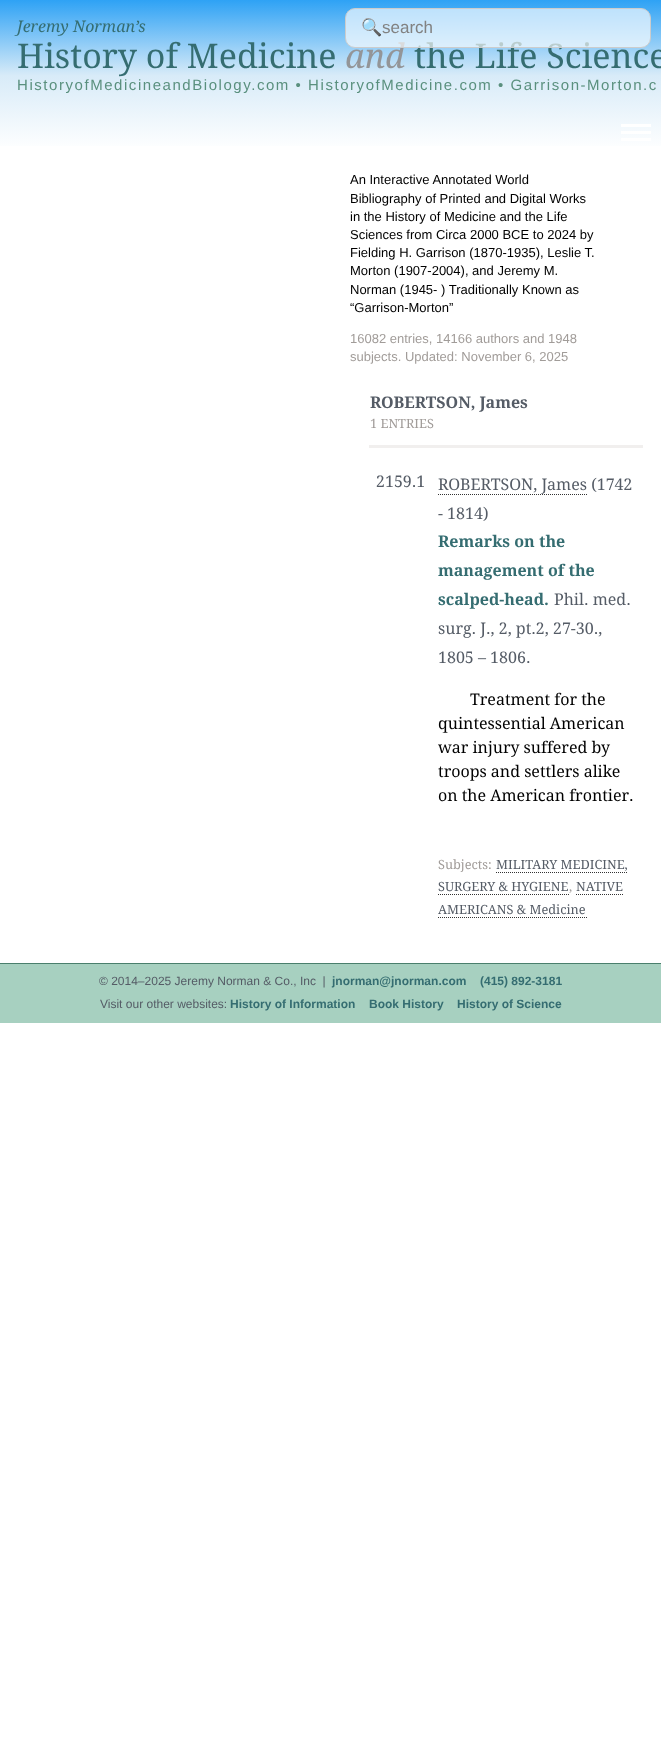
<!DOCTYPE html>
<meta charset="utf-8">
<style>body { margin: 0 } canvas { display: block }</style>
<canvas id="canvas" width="661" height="1745"></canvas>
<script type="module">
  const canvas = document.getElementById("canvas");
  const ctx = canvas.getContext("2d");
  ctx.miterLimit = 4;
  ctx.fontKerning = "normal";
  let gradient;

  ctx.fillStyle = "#ffffff";
  ctx.fillRect(0, 0, 661, 1745);
  gradient = ctx.createLinearGradient(331, 0, 331, 151);
  gradient.addColorStop(0, "#2ea2f5");
  gradient.addColorStop(0.5, "#d8ebf8");
  gradient.addColorStop(1, "#ffffff");
  ctx.fillStyle = gradient;
  ctx.fillRect(0, 0, 661, 146);
  ctx.font = "italic 34px Droid Serif";
  ctx.fillStyle = "#939598";
  ctx.fillText("and", 345, 68);
  ctx.font = "34px Droid Serif";
  ctx.fillStyle = "#356d71";
  ctx.fillText("the Life Science", 414, 68);
  ctx.fillStyle = "rgba(255, 255, 255, 0.66)";
  ctx.beginPath();
  ctx.roundRect(345.5, 8.5, 305, 39, 9.5);
  ctx.fill();
  ctx.strokeStyle = "#cccccc";
  ctx.stroke();
  ctx.font = "17px Noto Color Emoji";
  ctx.fillStyle = "#828282";
  ctx.fillText("🔍", 361, 33);
  ctx.font = "17px Liberation Sans";
  ctx.fillText("search", 382, 33);
  ctx.font = "italic 16px Droid Serif";
  ctx.fillStyle = "#356d71";
  ctx.fillText("Jeremy Norman’s", 17, 32);
  ctx.font = "34px Droid Serif";
  ctx.fillText("History of Medicine", 17, 68);
  ctx.letterSpacing = "1.55px";
  ctx.font = "15px Liberation Sans";
  ctx.fillStyle = "#5a907e";
  ctx.fillText("HistoryofMedicineandBiology.com • HistoryofMedicine.com • Garrison-Morton.c", 17, 90);
  ctx.fillStyle = "#ffffff";
  ctx.fillRect(621, 124, 30, 3);
  ctx.fillRect(621, 138, 30, 3);
  ctx.fillRect(621, 131, 30, 3);
  ctx.letterSpacing = "0px";
  ctx.font = "13px Liberation Sans";
  ctx.fillStyle = "#000000";
  ctx.fillText("An Interactive Annotated World", 350, 184);
  ctx.fillText("Bibliography of Printed and Digital Works", 350, 203);
  ctx.fillText("in the History of Medicine and the Life", 350, 221);
  ctx.fillText("Sciences from Circa 2000 BCE to 2024 by", 350, 239);
  ctx.fillText("Fielding H. Garrison (1870-1935), Leslie T.", 350, 257);
  ctx.fillText("Morton (1907-2004), and Jeremy M.", 350, 275);
  ctx.fillText("Norman (1945- ) Traditionally Known as", 350, 294);
  ctx.fillText("“Garrison-Morton”", 350, 312);
  ctx.fillStyle = "#a19c99";
  ctx.fillText("16082 entries, 14166 authors and 1948", 350, 343);
  ctx.fillText("subjects. Updated: November 6, 2025", 350, 361);
  ctx.font = "bold 16px Droid Serif";
  ctx.fillStyle = "#555c66";
  ctx.fillText("ROBERTSON, James", 370, 408);
  ctx.font = "12.75px Droid Serif";
  ctx.fillStyle = "#a19c99";
  ctx.fillText("1 ENTRIES", 370, 428);
  ctx.font = "16px Droid Serif";
  ctx.fillStyle = "#555c66";
  ctx.fillText("2159.1", 376, 487);
  ctx.fillStyle = "#f1efee";
  ctx.fillRect(369, 445, 274, 3);
  ctx.fillStyle = "#555c66";
  ctx.fillText("ROBERTSON, James (1742", 438, 490);
  ctx.beginPath();
  ctx.moveTo(438, 494.5);
  ctx.lineTo(588, 494.5);
  ctx.strokeStyle = "#333333";
  ctx.setLineDash([1, 1]);
  ctx.stroke();
  ctx.fillText("- 1814)", 438, 519);
  ctx.font = "bold 16px Droid Serif";
  ctx.fillStyle = "#356d71";
  ctx.fillText("Remarks on the", 438, 547);
  ctx.fillText("management of the", 438, 576);
  ctx.fillText("scalped-head.", 438, 605);
  ctx.font = "16px Droid Serif";
  ctx.fillStyle = "#555c66";
  ctx.fillText("Phil. med.", 554, 605);
  ctx.fillText("surg. J., 2, pt.2, 27-30.,", 438, 634);
  ctx.fillText("1805 – 1806.", 438, 663);
  ctx.fillStyle = "#000000";
  ctx.fillText("Treatment for the", 470, 705);
  ctx.fillText("quintessential American", 438, 729);
  ctx.fillText("war injury suffered by", 438, 753);
  ctx.fillText("troops and settlers alike", 438, 777);
  ctx.fillText("on the American frontier.", 438, 801);
  ctx.font = "12.75px Droid Serif";
  ctx.fillStyle = "#a19c99";
  ctx.fillText("Subjects:", 438, 869);
  ctx.fillStyle = "#555c66";
  ctx.fillText("MILITARY MEDICINE,", 496, 869);
  ctx.beginPath();
  ctx.moveTo(496, 872.5);
  ctx.lineTo(628, 872.5);
  ctx.stroke();
  ctx.fillText("SURGERY & HYGIENE", 438, 891);
  ctx.fillStyle = "#a19c99";
  ctx.fillText(",", 569, 891);
  ctx.beginPath();
  ctx.moveTo(438, 894.5);
  ctx.lineTo(569, 894.5);
  ctx.stroke();
  ctx.beginPath();
  ctx.moveTo(576, 894.5);
  ctx.lineTo(623, 894.5);
  ctx.stroke();
  ctx.fillStyle = "#555c66";
  ctx.fillText("NATIVE", 576, 891);
  ctx.fillText("AMERICANS & Medicine", 438, 914);
  ctx.beginPath();
  ctx.moveTo(438, 917.5);
  ctx.lineTo(587, 917.5);
  ctx.stroke();
  ctx.fillStyle = "#a7d0c0";
  ctx.fillRect(0, 964, 661, 59);
  ctx.fillStyle = "#4a7f6d";
  ctx.fillRect(0, 963, 661, 1);
  ctx.font = "12px Liberation Sans";
  ctx.fillStyle = "#555c66";
  ctx.fillText("© 2014–2025 Jeremy Norman & Co., Inc  |", 99, 985);
  ctx.font = "bold 12px Liberation Sans";
  ctx.fillStyle = "#356d71";
  ctx.fillText("jnorman@jnorman.com", 332, 985);
  ctx.fillText("(415) 892-3181", 480, 985);
  ctx.font = "12px Liberation Sans";
  ctx.fillStyle = "#555c66";
  ctx.fillText("Visit our other websites:", 100, 1008);
  ctx.font = "bold 12px Liberation Sans";
  ctx.fillStyle = "#356d71";
  ctx.fillText("History of Information", 230, 1008);
  ctx.fillText("Book History", 369, 1008);
  ctx.fillText("History of Science", 457, 1008);
</script>
